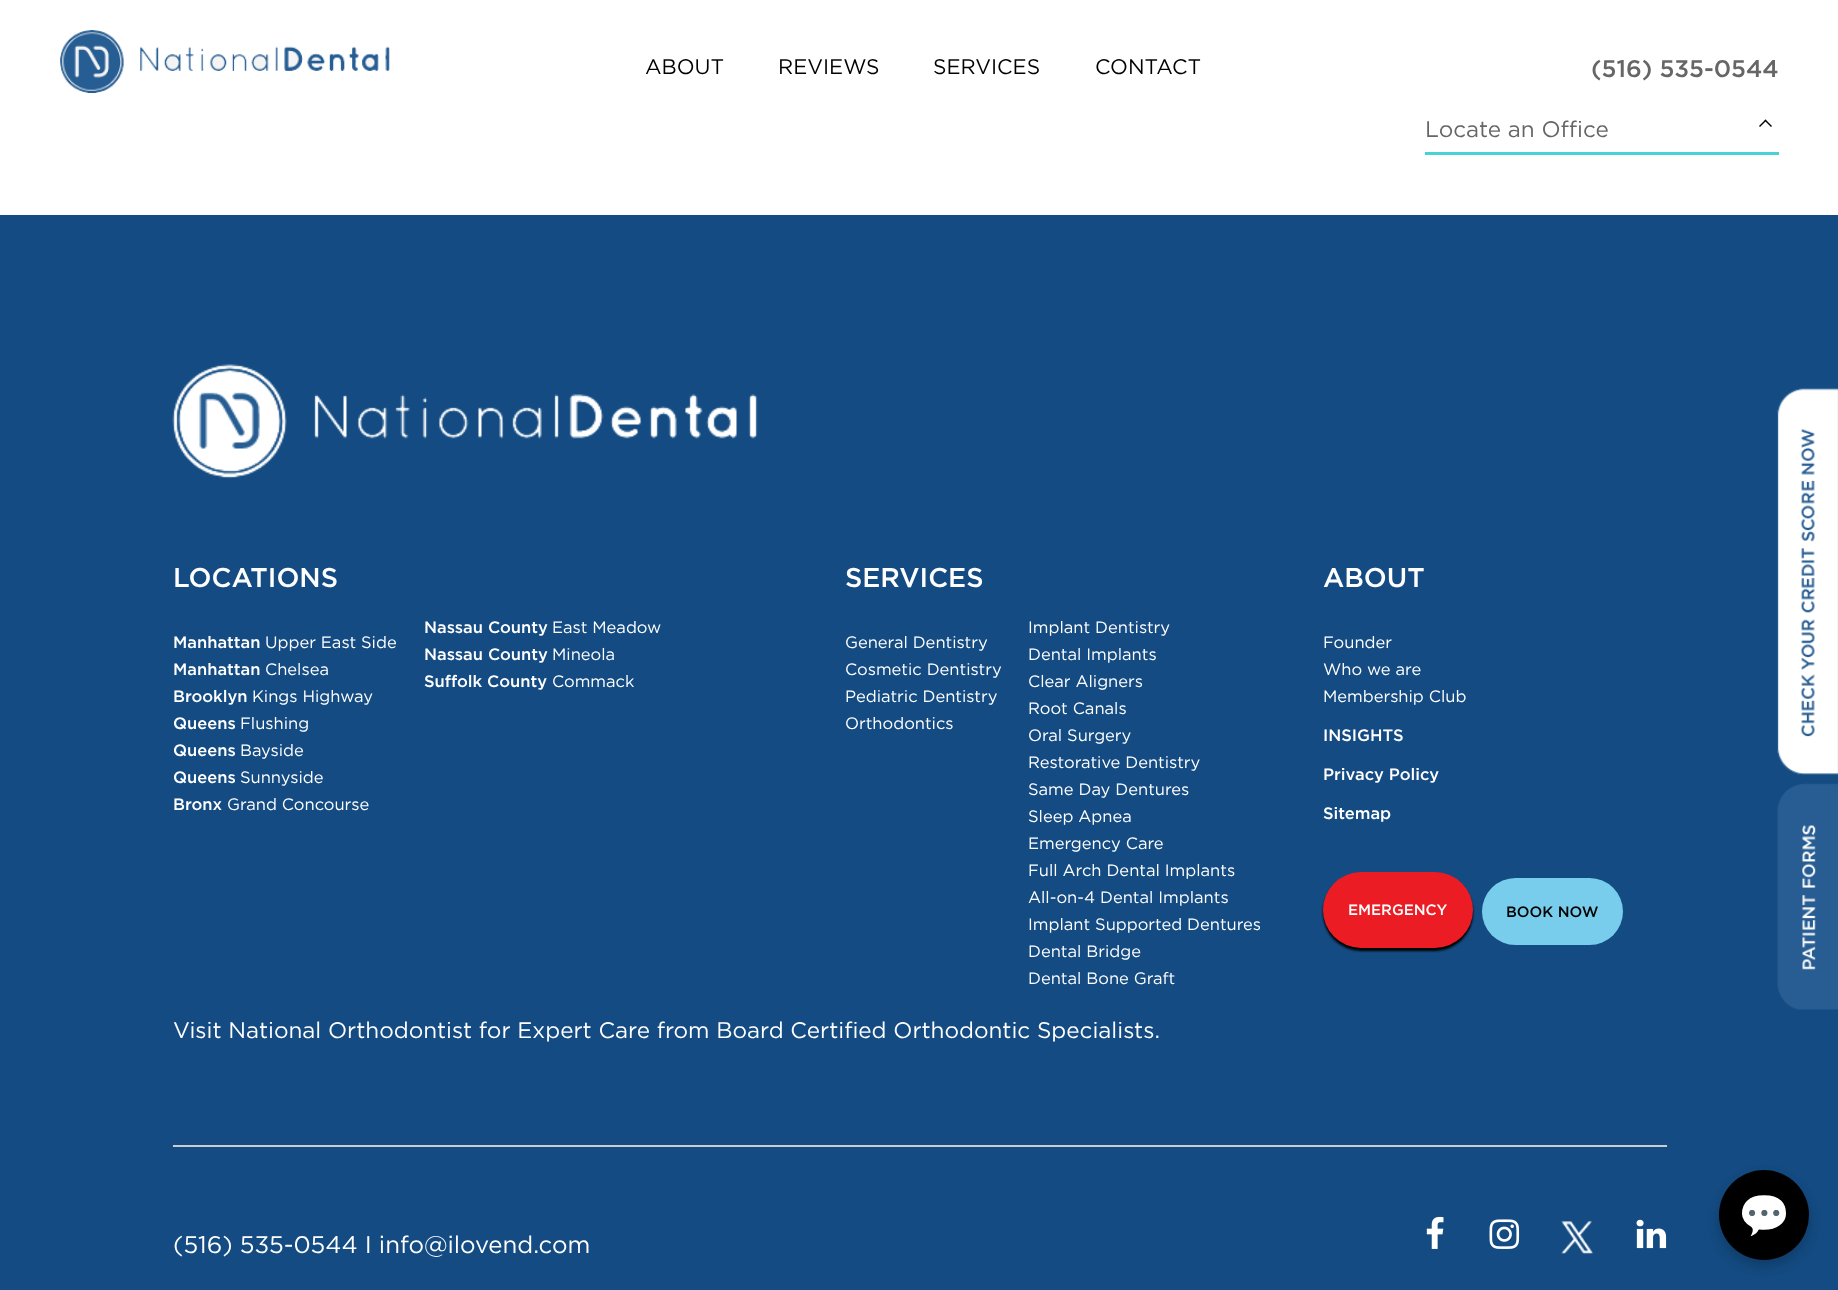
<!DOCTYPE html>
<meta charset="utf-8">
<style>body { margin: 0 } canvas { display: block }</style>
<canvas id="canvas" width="1838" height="1290"></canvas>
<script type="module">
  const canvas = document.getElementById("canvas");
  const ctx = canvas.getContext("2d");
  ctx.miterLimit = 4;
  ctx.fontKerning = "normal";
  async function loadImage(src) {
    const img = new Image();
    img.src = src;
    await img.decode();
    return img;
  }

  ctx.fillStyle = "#ffffff";
  ctx.fillRect(0, 0, 1838, 1290);
  ctx.drawImage(await loadImage("img1.png"), 60, 30, 330, 63);
  ctx.font = "21px Gotham";
  ctx.fillStyle = "#000000";
  ctx.fillText("ABOUT", 645, 74);
  ctx.fillText("REVIEWS", 778, 74);
  ctx.fillText("SERVICES", 933, 74);
  ctx.fillText("CONTACT", 1095, 74);
  ctx.font = "500 24px Gotham";
  ctx.fillStyle = "#666666";
  ctx.fillText("(516) 535-0544", 1591, 77);
  ctx.fillStyle = "#47d3d5";
  ctx.fillRect(1425, 152, 354, 3);
  ctx.font = "22.5px Gotham";
  ctx.fillStyle = "#666666";
  ctx.fillText("Locate an Office", 1425, 137);
  ctx.fillStyle = "#000000";
  ctx.beginPath();
  ctx.moveTo(1760, 127);
  ctx.lineTo(1759, 126);
  ctx.lineTo(1765.5, 119.5);
  ctx.lineTo(1766.5, 120.5);
  ctx.closePath();
  ctx.fill();
  ctx.beginPath();
  ctx.moveTo(1771, 127);
  ctx.lineTo(1764.5, 120.5);
  ctx.lineTo(1765.5, 119.5);
  ctx.lineTo(1772, 126);
  ctx.closePath();
  ctx.fill();
  ctx.fillStyle = "#134b82";
  ctx.fillRect(0, 215, 1838, 1075);
  ctx.drawImage(await loadImage("img2.png"), 172, 364, 586, 115);
  ctx.font = "500 27px Gotham";
  ctx.fillStyle = "#ffffff";
  ctx.fillText("LOCATIONS", 173, 587);
  ctx.font = "500 16.5px Gotham";
  ctx.fillText("Manhattan", 173, 648);
  ctx.font = "16.5px Gotham";
  ctx.fillText("Upper East Side", 265, 648);
  ctx.font = "500 16.5px Gotham";
  ctx.fillText("Manhattan", 173, 675);
  ctx.font = "16.5px Gotham";
  ctx.fillText("Chelsea", 265, 675);
  ctx.font = "500 16.5px Gotham";
  ctx.fillText("Brooklyn", 173, 702);
  ctx.font = "16.5px Gotham";
  ctx.fillText("Kings Highway", 252, 702);
  ctx.font = "500 16.5px Gotham";
  ctx.fillText("Queens", 173, 729);
  ctx.font = "16.5px Gotham";
  ctx.fillText("Flushing", 240, 729);
  ctx.font = "500 16.5px Gotham";
  ctx.fillText("Queens", 173, 756);
  ctx.font = "16.5px Gotham";
  ctx.fillText("Bayside", 240, 756);
  ctx.font = "500 16.5px Gotham";
  ctx.fillText("Queens", 173, 783);
  ctx.font = "16.5px Gotham";
  ctx.fillText("Sunnyside", 240, 783);
  ctx.font = "500 16.5px Gotham";
  ctx.fillText("Bronx", 173, 810);
  ctx.font = "16.5px Gotham";
  ctx.fillText("Grand Concourse", 227, 810);
  ctx.font = "500 16.5px Gotham";
  ctx.fillText("Nassau County", 424, 633);
  ctx.font = "16.5px Gotham";
  ctx.fillText("East Meadow", 552, 633);
  ctx.font = "500 16.5px Gotham";
  ctx.fillText("Nassau County", 424, 660);
  ctx.font = "16.5px Gotham";
  ctx.fillText("Mineola", 552, 660);
  ctx.font = "500 16.5px Gotham";
  ctx.fillText("Suffolk County", 424, 687);
  ctx.font = "16.5px Gotham";
  ctx.fillText("Commack", 552, 687);
  ctx.font = "500 27px Gotham";
  ctx.fillText("SERVICES", 845, 587);
  ctx.font = "16.5px Gotham";
  ctx.fillText("General Dentistry", 845, 648);
  ctx.fillText("Cosmetic Dentistry", 845, 675);
  ctx.fillText("Pediatric Dentistry", 845, 702);
  ctx.fillText("Orthodontics", 845, 729);
  ctx.fillText("Implant Dentistry", 1028, 633);
  ctx.fillText("Dental Implants", 1028, 660);
  ctx.fillText("Clear Aligners", 1028, 687);
  ctx.fillText("Root Canals", 1028, 714);
  ctx.fillText("Oral Surgery", 1028, 741);
  ctx.fillText("Restorative Dentistry", 1028, 768);
  ctx.fillText("Same Day Dentures", 1028, 795);
  ctx.fillText("Sleep Apnea", 1028, 822);
  ctx.fillText("Emergency Care", 1028, 849);
  ctx.fillText("Full Arch Dental Implants", 1028, 876);
  ctx.fillText("All-on-4 Dental Implants", 1028, 903);
  ctx.fillText("Implant Supported Dentures", 1028, 930);
  ctx.fillText("Dental Bridge", 1028, 957);
  ctx.fillText("Dental Bone Graft", 1028, 984);
  ctx.font = "500 27px Gotham";
  ctx.fillText("ABOUT", 1323, 587);
  ctx.font = "16.5px Gotham";
  ctx.fillText("Founder", 1323, 648);
  ctx.fillText("Who we are", 1323, 675);
  ctx.fillText("Membership Club", 1323, 702);
  ctx.font = "500 16.5px Gotham";
  ctx.fillText("INSIGHTS", 1323, 741);
  ctx.fillText("Privacy Policy", 1323, 780);
  ctx.fillText("Sitemap", 1323, 819);
  ctx.fillStyle = "#000000";
  ctx.filter = "blur(1px)";
  ctx.beginPath();
  ctx.roundRect(1323, 875, 150, 76, 38);
  ctx.fill();
  ctx.filter = "none";
  ctx.fillStyle = "#eb1c23";
  ctx.beginPath();
  ctx.roundRect(1323, 872, 150, 76, 38);
  ctx.fill();
  ctx.font = "500 15px Gotham";
  ctx.fillStyle = "#ffffff";
  ctx.fillText("EMERGENCY", 1348, 915);
  ctx.fillStyle = "#77cdeb";
  ctx.beginPath();
  ctx.roundRect(1482, 878, 141, 67, 33.5);
  ctx.fill();
  ctx.fillStyle = "#000000";
  ctx.fillText("BOOK NOW", 1506, 917);
  ctx.font = "22.5px Gotham";
  ctx.fillStyle = "#ffffff";
  ctx.fillText("Visit National Orthodontist for Expert Care from Board Certified Orthodontic Specialists.", 173, 1038);
  ctx.fillStyle = "#cccccc";
  ctx.fillRect(173, 1145, 1494, 2);
  ctx.font = "24px Gotham";
  ctx.fillStyle = "#ffffff";
  ctx.fillText("(516) 535-0544 I info@ilovend.com", 173, 1253);
  ctx.drawImage(await loadImage("img3.png"), 1426, 1216, 18, 33);
  ctx.drawImage(await loadImage("img4.png"), 1489, 1219, 31, 30);
  ctx.drawImage(await loadImage("img5.png"), 1561, 1221, 32, 33);
  ctx.drawImage(await loadImage("img6.png"), 1636, 1219, 31, 30);
  ctx.drawImage(await loadImage("img7.png"), 1777, 388, 61, 387);
  ctx.drawImage(await loadImage("img8.png"), 1777, 783, 61, 227);
  ctx.fillStyle = "rgba(0, 0, 0, 0.2)";
  ctx.filter = "blur(6px)";
  ctx.beginPath();
  ctx.roundRect(1719, 1176, 90, 90, 45);
  ctx.fill();
  ctx.filter = "none";
  ctx.fillStyle = "#000000";
  ctx.beginPath();
  ctx.arc(1764, 1215, 45, 0, Math.PI * 2);
  ctx.fill();
  ctx.font = "42px Noto Color Emoji";
  ctx.fillStyle = "#ffffff";
  ctx.fillText("💬", 1738, 1230);
</script>
